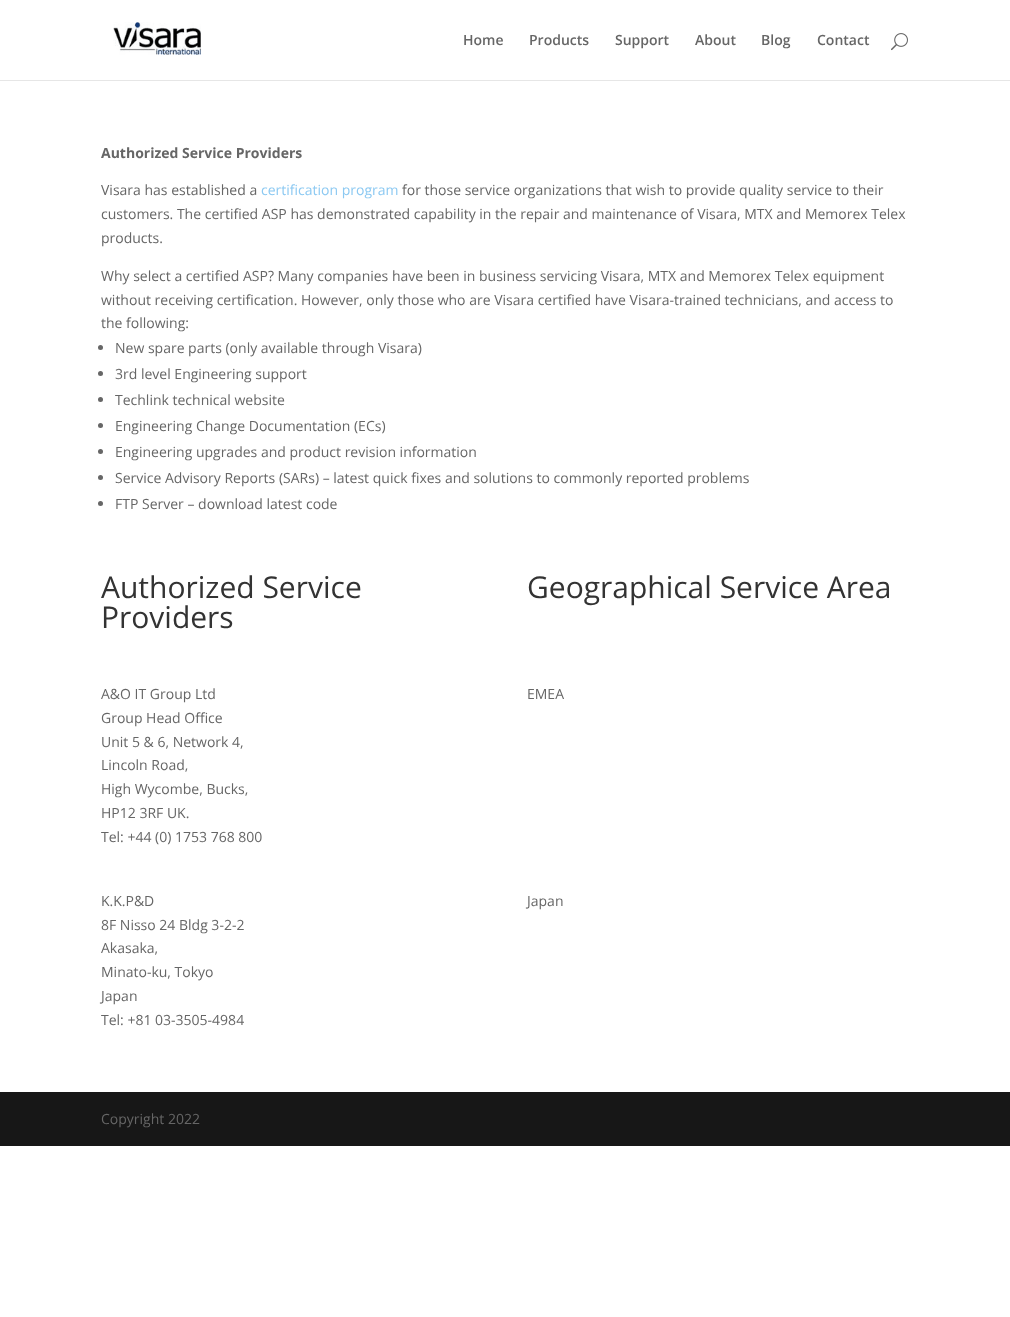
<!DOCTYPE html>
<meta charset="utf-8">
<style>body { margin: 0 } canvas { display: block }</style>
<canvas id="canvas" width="1010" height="1317"></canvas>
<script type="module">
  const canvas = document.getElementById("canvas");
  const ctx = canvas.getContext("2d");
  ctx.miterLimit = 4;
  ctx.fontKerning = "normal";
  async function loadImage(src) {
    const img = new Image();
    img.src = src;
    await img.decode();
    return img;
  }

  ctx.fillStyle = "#ffffff";
  ctx.fillRect(0, 0, 1010, 1317);
  ctx.fillStyle = "#e6e6e6";
  ctx.fillRect(0, 80, 1010, 1);
  ctx.drawImage(await loadImage("img1.png"), 113, 22, 88, 33);
  ctx.font = "600 14px Open Sans";
  ctx.fillStyle = "#666666";
  ctx.fillText("Home", 463, 45);
  ctx.fillText("Products", 529, 45);
  ctx.fillText("Support", 615, 45);
  ctx.fillText("About", 695, 45);
  ctx.fillText("Blog", 761, 45);
  ctx.fillText("Contact", 817, 45);
  ctx.drawImage(await loadImage("img2.png"), 891, 33, 17, 18);
  ctx.font = "bold 14px Open Sans";
  ctx.fillText("Authorized Service Providers", 101, 158);
  ctx.font = "14px Open Sans";
  ctx.fillText("Visara has established a", 101, 195);
  ctx.fillStyle = "#8cc9f2";
  ctx.fillText("certification program", 261, 195);
  ctx.fillStyle = "#666666";
  ctx.fillText("for those service organizations that wish to provide quality service to their", 402, 195);
  ctx.fillText("customers. The certified ASP has demonstrated capability in the repair and maintenance of Visara, MTX and Memorex Telex", 101, 219);
  ctx.fillText("products.", 101, 243);
  ctx.fillText("Why select a certified ASP? Many companies have been in business servicing Visara, MTX and Memorex Telex equipment", 101, 281);
  ctx.fillText("without receiving certification. However, only those who are Visara certified have Visara-trained technicians, and access to", 101, 305);
  ctx.fillText("the following:", 101, 328);
  ctx.beginPath();
  ctx.arc(100.5, 347.5, 2.5, 0, Math.PI * 2);
  ctx.fill();
  ctx.fillText("New spare parts (only available through Visara)", 115, 353);
  ctx.beginPath();
  ctx.arc(100.5, 373.5, 2.5, 0, Math.PI * 2);
  ctx.fill();
  ctx.fillText("3rd level Engineering support", 115, 379);
  ctx.beginPath();
  ctx.arc(100.5, 399.5, 2.5, 0, Math.PI * 2);
  ctx.fill();
  ctx.fillText("Techlink technical website", 115, 405);
  ctx.beginPath();
  ctx.arc(100.5, 425.5, 2.5, 0, Math.PI * 2);
  ctx.fill();
  ctx.fillText("Engineering Change Documentation (ECs)", 115, 431);
  ctx.beginPath();
  ctx.arc(100.5, 451.5, 2.5, 0, Math.PI * 2);
  ctx.fill();
  ctx.fillText("Engineering upgrades and product revision information", 115, 457);
  ctx.beginPath();
  ctx.arc(100.5, 477.5, 2.5, 0, Math.PI * 2);
  ctx.fill();
  ctx.fillText("Service Advisory Reports (SARs) – latest quick fixes and solutions to commonly reported problems", 115, 483);
  ctx.beginPath();
  ctx.arc(100.5, 503.5, 2.5, 0, Math.PI * 2);
  ctx.fill();
  ctx.fillText("FTP Server – download latest code", 115, 509);
  ctx.font = "30px Open Sans";
  ctx.fillStyle = "#333333";
  ctx.fillText("Authorized Service", 101, 598);
  ctx.fillText("Providers", 101, 628);
  ctx.fillText("Geographical Service Area", 527, 598);
  ctx.font = "14px Open Sans";
  ctx.fillStyle = "#666666";
  ctx.fillText("A&O IT Group Ltd", 101, 699);
  ctx.fillText("Group Head Office", 101, 723);
  ctx.fillText("Unit 5 & 6, Network 4,", 101, 747);
  ctx.fillText("Lincoln Road,", 101, 770);
  ctx.fillText("High Wycombe, Bucks,", 101, 794);
  ctx.fillText("HP12 3RF UK.", 101, 818);
  ctx.fillText("Tel: +44 (0) 1753 768 800", 101, 842);
  ctx.fillText("EMEA", 527, 699);
  ctx.fillText("K.K.P&D", 101, 906);
  ctx.fillText("8F Nisso 24 Bldg 3-2-2", 101, 930);
  ctx.fillText("Akasaka,", 101, 953);
  ctx.fillText("Minato-ku, Tokyo", 101, 977);
  ctx.fillText("Japan", 101, 1001);
  ctx.fillText("Tel: +81 03-3505-4984", 101, 1025);
  ctx.fillText("Japan", 527, 906);
  ctx.fillStyle = "#171717";
  ctx.fillRect(0, 1092, 1010, 54);
  ctx.fillStyle = "#666666";
  ctx.fillText("Copyright 2022", 101, 1124);
</script>
